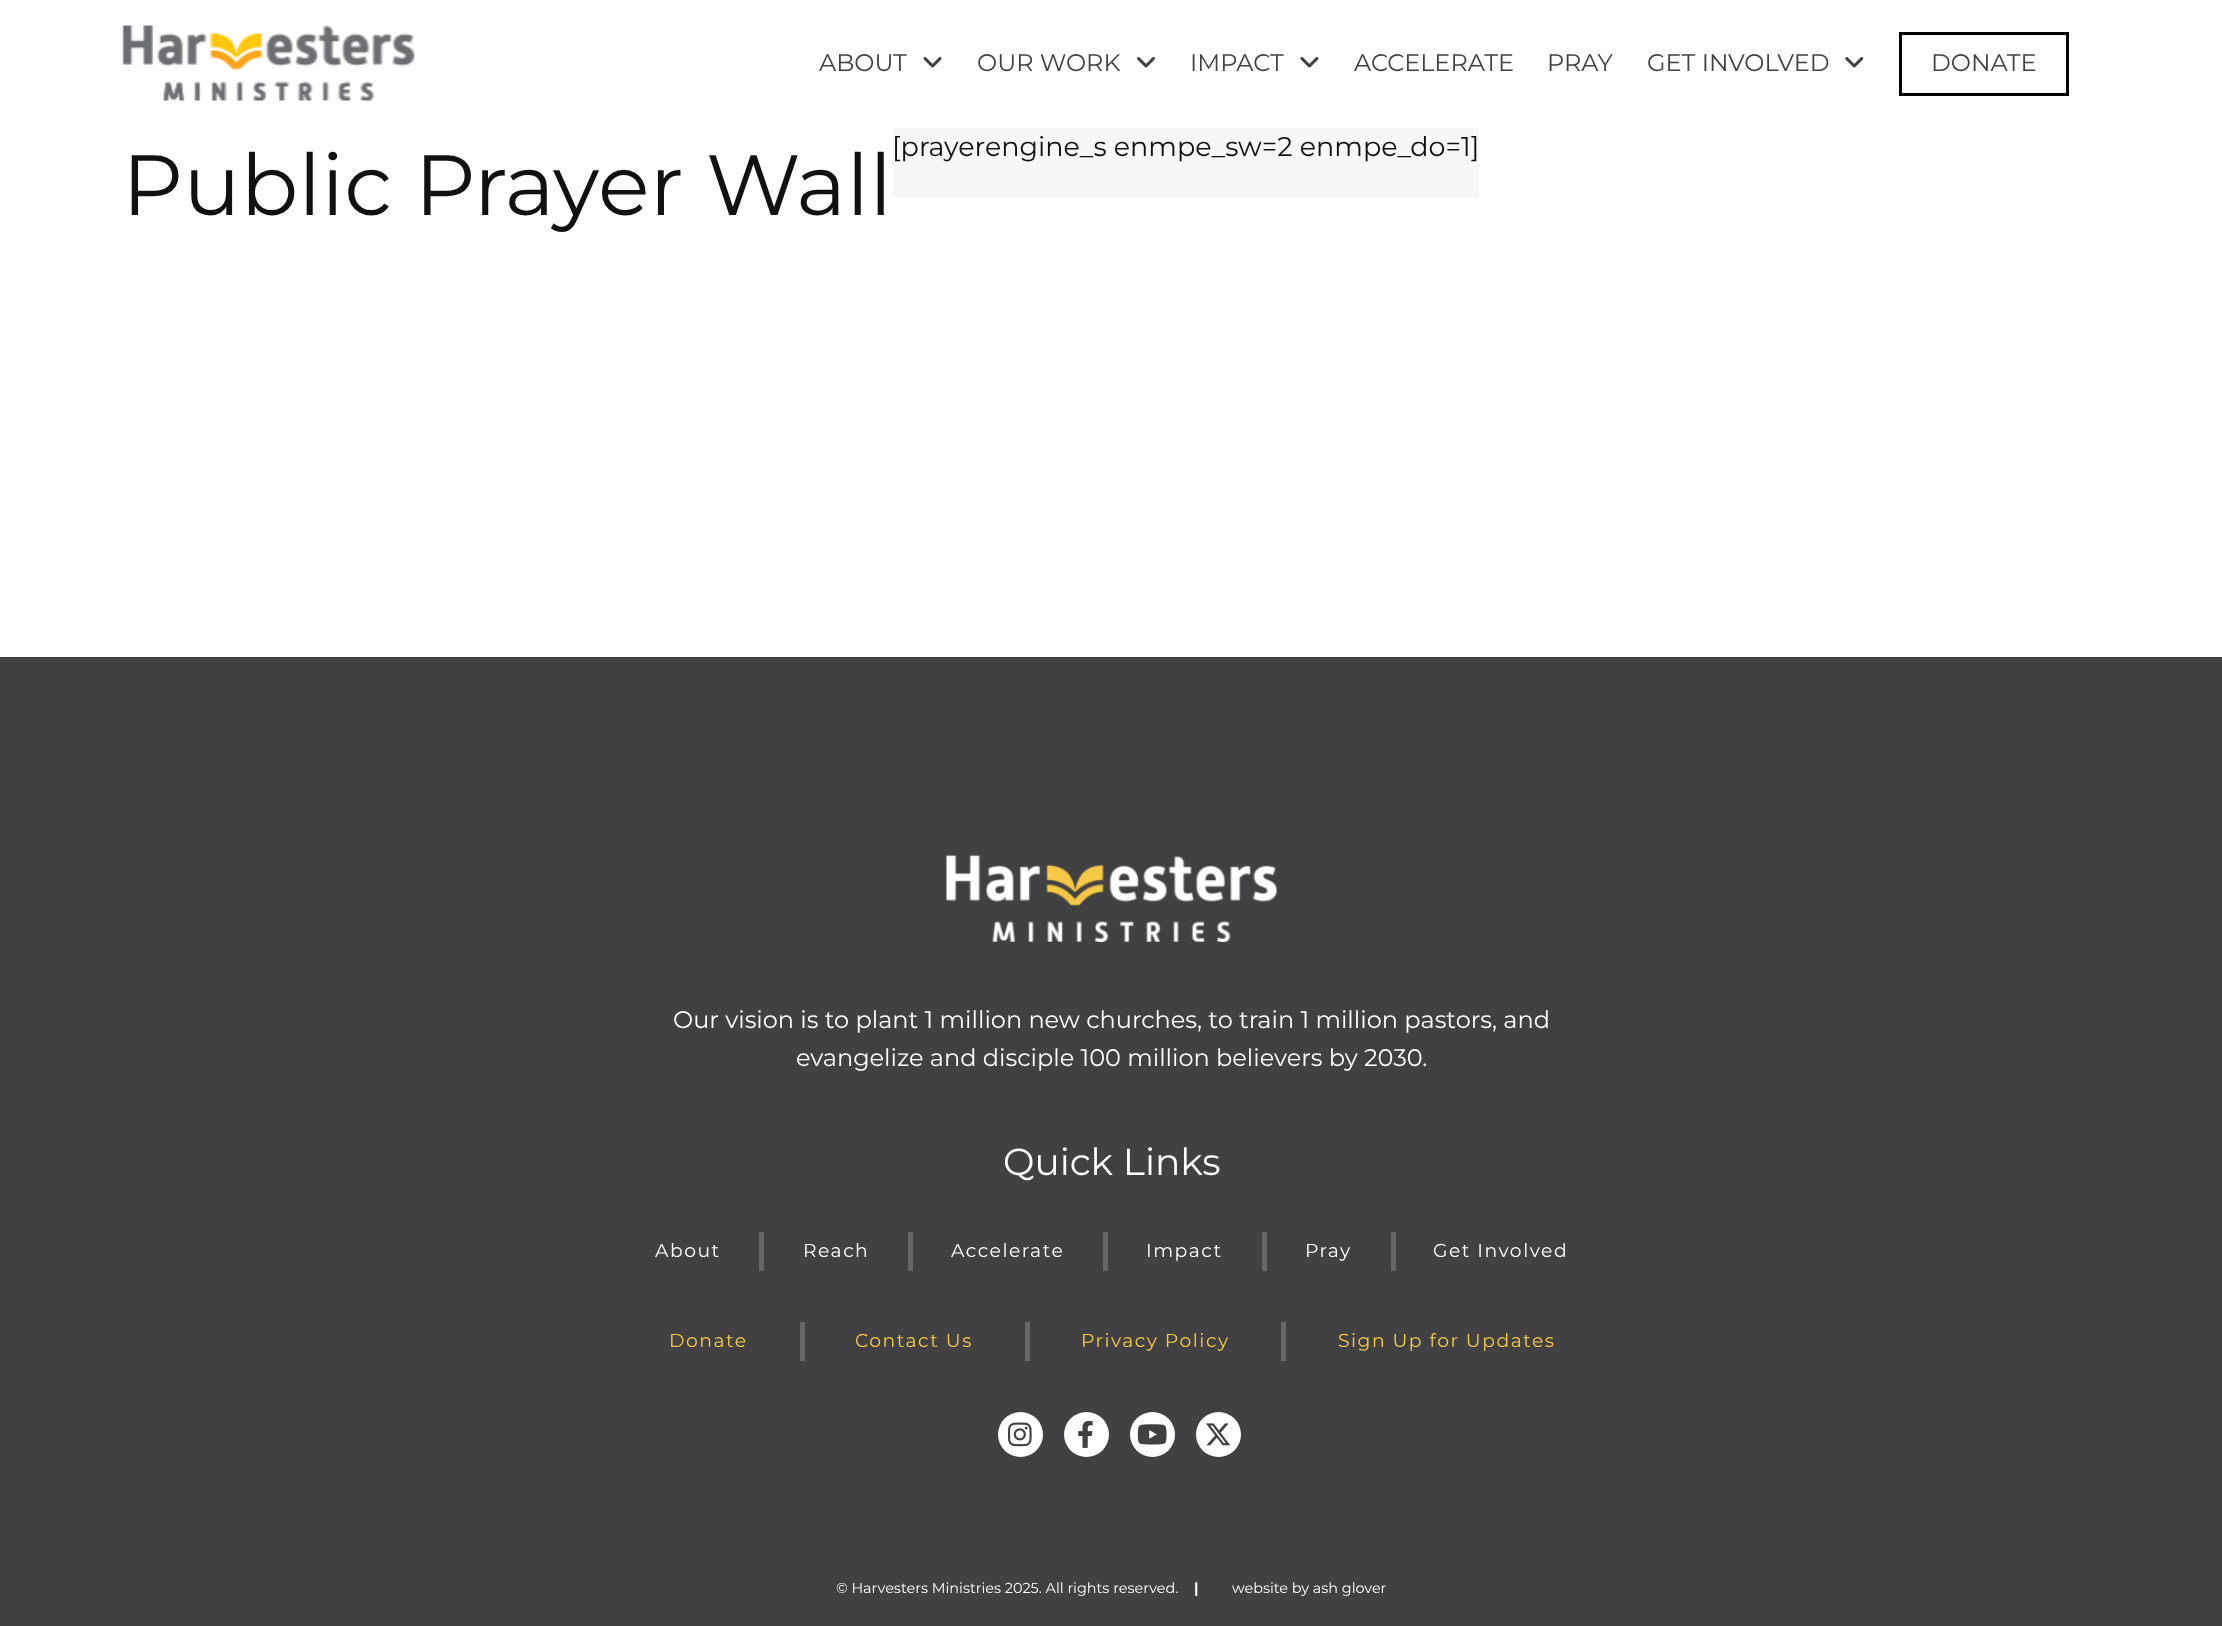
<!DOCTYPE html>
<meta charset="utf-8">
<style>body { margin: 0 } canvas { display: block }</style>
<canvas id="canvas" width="2222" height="1626"></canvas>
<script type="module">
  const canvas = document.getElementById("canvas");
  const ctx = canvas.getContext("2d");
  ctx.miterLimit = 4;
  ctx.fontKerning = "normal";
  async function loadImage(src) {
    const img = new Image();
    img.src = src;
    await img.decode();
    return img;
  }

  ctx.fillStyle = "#ffffff";
  ctx.fillRect(0, 0, 2222, 1626);
  ctx.drawImage(await loadImage("img1.png"), 122, 25, 293, 77);
  ctx.font = "100 24px Montserrat";
  ctx.fillStyle = "#414042";
  ctx.fillText("ABOUT", 819, 71);
  ctx.drawImage(await loadImage("img2.png"), 923, 57, 19, 11);
  ctx.fillText("OUR WORK", 977, 71);
  ctx.drawImage(await loadImage("img3.png"), 1137, 57, 18, 11);
  ctx.fillText("IMPACT", 1190, 71);
  ctx.drawImage(await loadImage("img4.png"), 1300, 57, 19, 11);
  ctx.fillText("ACCELERATE", 1354, 71);
  ctx.fillText("PRAY", 1547, 71);
  ctx.fillText("GET INVOLVED", 1647, 71);
  ctx.drawImage(await loadImage("img5.png"), 1845, 57, 19, 11);
  ctx.strokeStyle = "#000000";
  ctx.lineWidth = 3;
  ctx.strokeRect(1900.5, 33.5, 167, 61);
  ctx.fillText("DONATE", 1931, 71);
  ctx.font = "100 85.25px Montserrat";
  ctx.fillStyle = "#111111";
  ctx.fillText("Public Prayer Wall", 122, 215);
  ctx.fillStyle = "#f7f7f7";
  ctx.fillRect(893, 128, 586, 70);
  ctx.font = "100 27px Montserrat";
  ctx.fillStyle = "#111111";
  ctx.fillText("[prayerengine_s enmpe_sw=2 enmpe_do=1]", 892, 156);
  ctx.fillStyle = "#414042";
  ctx.fillRect(0, 657, 2222, 969);
  ctx.drawImage(await loadImage("img6.png"), 946, 855, 331, 87);
  ctx.font = "100 24px Montserrat";
  ctx.fillStyle = "#ffffff";
  ctx.fillText("Our vision is to plant 1 million new churches, to train 1 million pastors, and", 673, 1028);
  ctx.fillText("evangelize and disciple 100 million believers by 2030.", 796, 1066);
  ctx.font = "100 37.5px Montserrat";
  ctx.fillText("Quick Links", 1003, 1175);
  ctx.fillStyle = "#676767";
  ctx.fillRect(759, 1232, 5, 39);
  ctx.letterSpacing = "1.5px";
  ctx.font = "100 18.75px Montserrat";
  ctx.fillStyle = "#ffffff";
  ctx.fillText("About", 655, 1257);
  ctx.fillStyle = "#676767";
  ctx.fillRect(908, 1232, 5, 39);
  ctx.fillStyle = "#ffffff";
  ctx.fillText("Reach", 803, 1257);
  ctx.fillStyle = "#676767";
  ctx.fillRect(1103, 1232, 5, 39);
  ctx.fillStyle = "#ffffff";
  ctx.fillText("Accelerate", 951, 1257);
  ctx.fillStyle = "#676767";
  ctx.fillRect(1262, 1232, 5, 39);
  ctx.fillStyle = "#ffffff";
  ctx.fillText("Impact", 1146, 1257);
  ctx.fillStyle = "#676767";
  ctx.fillRect(1391, 1232, 5, 39);
  ctx.fillStyle = "#ffffff";
  ctx.fillText("Pray", 1305, 1257);
  ctx.fillText("Get Involved", 1433, 1257);
  ctx.fillStyle = "#676767";
  ctx.fillRect(800, 1322, 5, 39);
  ctx.fillStyle = "#f6c946";
  ctx.fillText("Donate", 669, 1347);
  ctx.fillStyle = "#676767";
  ctx.fillRect(1025, 1322, 5, 39);
  ctx.fillStyle = "#f6c946";
  ctx.fillText("Contact Us", 855, 1347);
  ctx.fillStyle = "#676767";
  ctx.fillRect(1281, 1322, 5, 39);
  ctx.fillStyle = "#f6c946";
  ctx.fillText("Privacy Policy", 1081, 1347);
  ctx.fillText("Sign Up for Updates", 1338, 1347);
  ctx.fillStyle = "#ffffff";
  ctx.beginPath();
  ctx.arc(1020.5, 1434.5, 22.5, 0, Math.PI * 2);
  ctx.fill();
  ctx.drawImage(await loadImage("img7.png"), 1008, 1422, 24, 25);
  ctx.beginPath();
  ctx.arc(1086.5, 1434.5, 22.5, 0, Math.PI * 2);
  ctx.fill();
  ctx.drawImage(await loadImage("img8.png"), 1078, 1420, 15, 28);
  ctx.beginPath();
  ctx.arc(1152.5, 1434.5, 22.5, 0, Math.PI * 2);
  ctx.fill();
  ctx.drawImage(await loadImage("img9.png"), 1137, 1424, 30, 21);
  ctx.beginPath();
  ctx.arc(1218.5, 1434.5, 22.5, 0, Math.PI * 2);
  ctx.fill();
  ctx.drawImage(await loadImage("img10.png"), 1206, 1423, 24, 23);
  ctx.letterSpacing = "0px";
  ctx.font = "100 14.4px Montserrat";
  ctx.fillText("© Harvesters Ministries 2025. All rights reserved.", 836, 1593);
  ctx.font = "bold 14.4px Montserrat";
  ctx.fillText("|", 1194, 1593);
  ctx.font = "100 14.4px Montserrat";
  ctx.fillText("website by ash glover", 1232, 1593);
</script>
